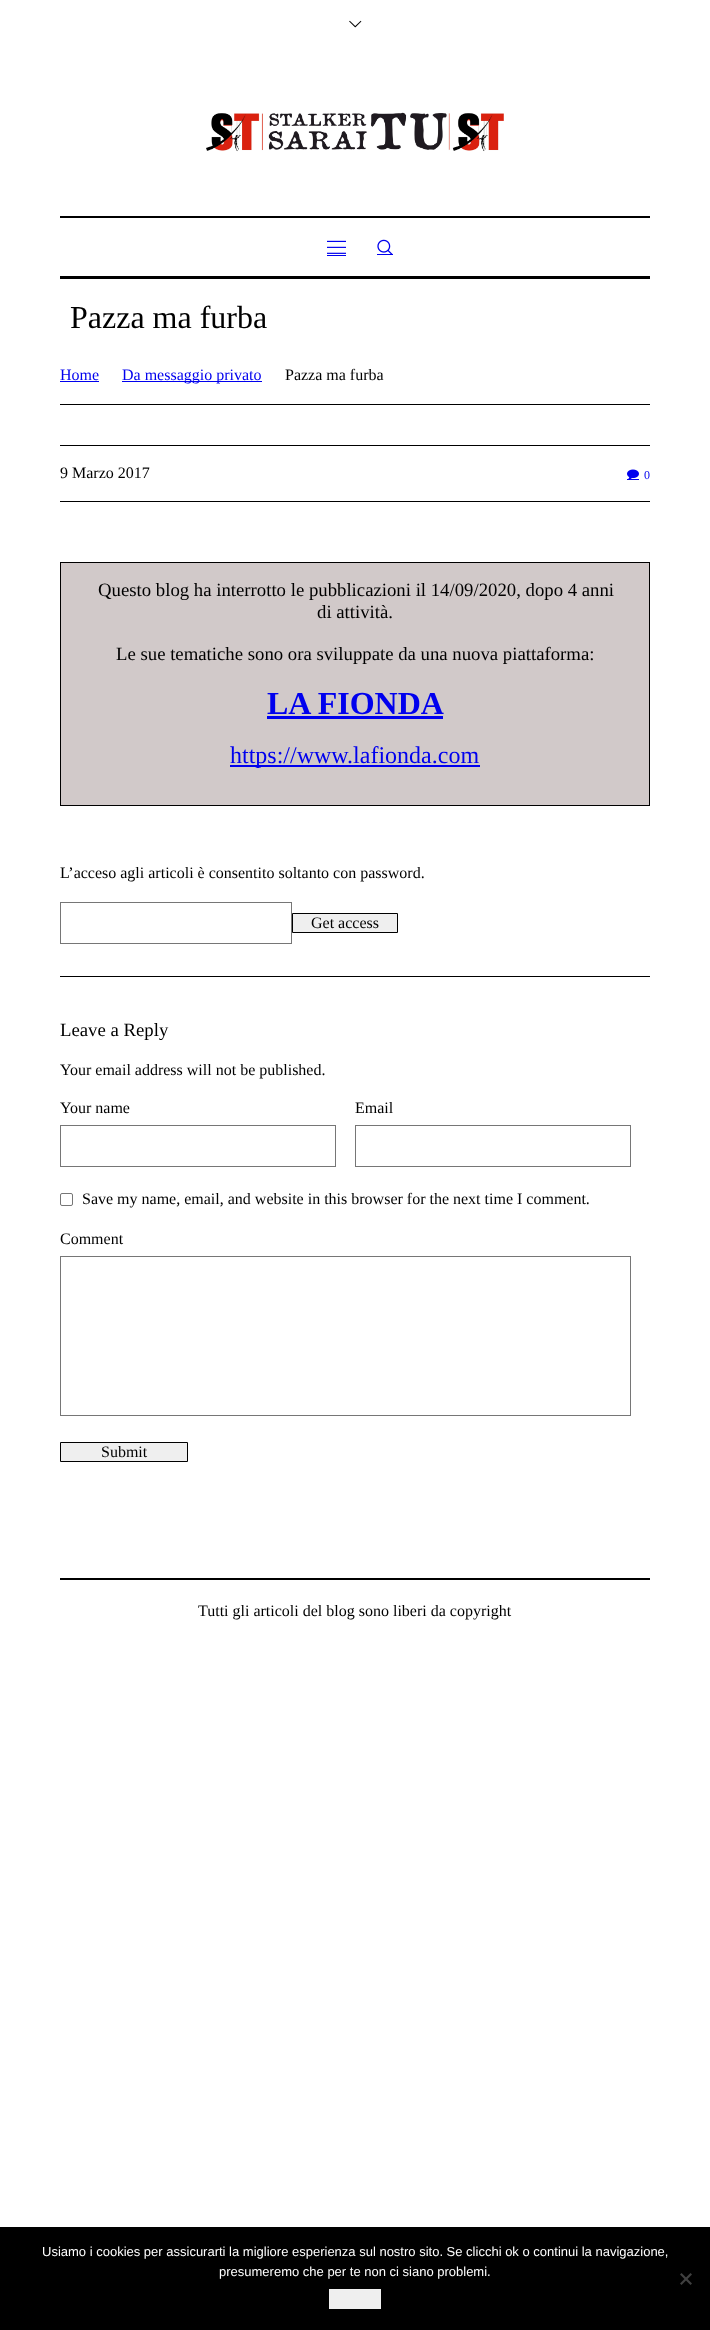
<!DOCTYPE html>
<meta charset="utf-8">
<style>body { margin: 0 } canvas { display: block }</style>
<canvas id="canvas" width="710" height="2330"></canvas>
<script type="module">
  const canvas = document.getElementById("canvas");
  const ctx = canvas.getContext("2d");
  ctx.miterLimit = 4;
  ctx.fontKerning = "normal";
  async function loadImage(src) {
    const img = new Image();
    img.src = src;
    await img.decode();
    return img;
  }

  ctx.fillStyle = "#ffffff";
  ctx.fillRect(0, 0, 710, 2330);
  ctx.drawImage(await loadImage("img1.png"), 349, 20, 13, 8);
  ctx.drawImage(await loadImage("img2.png"), 206, 112, 298, 40);
  ctx.fillStyle = "#000000";
  ctx.fillRect(60, 216, 590, 2);
  ctx.fillStyle = "#0000ee";
  ctx.fillRect(327, 255, 19, 1);
  ctx.drawImage(await loadImage("img3.png"), 327, 240, 19, 14);
  ctx.fillRect(377, 254, 16, 1);
  ctx.drawImage(await loadImage("img4.png"), 377, 239, 16, 15);
  ctx.fillStyle = "#000000";
  ctx.fillRect(60, 276, 590, 3);
  ctx.fillRect(60, 404, 590, 1);
  ctx.font = "32px Liberation Serif";
  ctx.fillText("Pazza ma furba", 70, 328);
  ctx.font = "16px Liberation Serif";
  ctx.fillStyle = "#0000ee";
  ctx.fillText("Home", 60, 380);
  ctx.fillRect(60, 381, 39, 1);
  ctx.fillRect(122, 381, 140, 1);
  ctx.fillText("Da messaggio privato", 122, 380);
  ctx.fillStyle = "#000000";
  ctx.fillText("Pazza ma furba", 285, 380);
  ctx.fillRect(60, 445, 590, 1);
  ctx.fillRect(60, 501, 590, 1);
  ctx.fillText("9 Marzo 2017", 60, 478);
  ctx.fillStyle = "#0000ee";
  ctx.fillRect(627, 479, 12, 1);
  ctx.drawImage(await loadImage("img5.png"), 627, 469, 12, 10);
  ctx.font = "12px Liberation Serif";
  ctx.fillText("0", 644, 479);
  ctx.fillStyle = "#000000";
  ctx.fillRect(60, 562, 590, 1);
  ctx.fillRect(649, 562, 1, 244);
  ctx.fillRect(60, 805, 590, 1);
  ctx.fillRect(60, 562, 1, 244);
  ctx.fillStyle = "#d1c9c9";
  ctx.fillRect(61, 563, 588, 242);
  ctx.font = "18.75px Liberation Serif";
  ctx.fillStyle = "#000000";
  ctx.fillText("Questo blog ha interrotto le pubblicazioni il 14/09/2020, dopo 4 anni", 98, 596);
  ctx.fillText("di attività.", 317, 618);
  ctx.fillText("Le sue tematiche sono ora sviluppate da una nuova piattaforma:", 116, 660);
  ctx.font = "bold 32px Liberation Serif";
  ctx.fillStyle = "#0000ee";
  ctx.fillText("LA FIONDA", 267, 714);
  ctx.fillRect(267, 716, 176, 3);
  ctx.fillRect(230, 765, 250, 2);
  ctx.font = "24px Liberation Serif";
  ctx.fillText("https://www.lafionda.com", 230, 763);
  ctx.font = "16px Liberation Serif";
  ctx.fillStyle = "#000000";
  ctx.fillText("L’acceso agli articoli è consentito soltanto con password.", 60, 878);
  ctx.strokeStyle = "#767676";
  ctx.strokeRect(60.5, 902.5, 231, 41);
  ctx.fillStyle = "#efefef";
  ctx.beginPath();
  ctx.rect(292.5, 913.5, 105, 19);
  ctx.fill();
  ctx.strokeStyle = "#000000";
  ctx.stroke();
  ctx.fillStyle = "#000000";
  ctx.fillText("Get access", 311, 928);
  ctx.fillRect(60, 976, 590, 1);
  ctx.font = "18.75px Liberation Serif";
  ctx.fillText("Leave a Reply", 60, 1036);
  ctx.font = "16px Liberation Serif";
  ctx.fillText("Your email address will not be published.", 60, 1075);
  ctx.fillText("Your name", 60, 1113);
  ctx.strokeStyle = "#767676";
  ctx.strokeRect(60.5, 1125.5, 275, 41);
  ctx.fillText("Email", 355, 1113);
  ctx.strokeRect(355.5, 1125.5, 275, 41);
  ctx.beginPath();
  ctx.roundRect(60.5, 1193.5, 12, 12, 1.5);
  ctx.stroke();
  ctx.fillText("Save my name, email, and website in this browser for the next time I comment.", 82, 1204);
  ctx.fillText("Comment", 60, 1244);
  ctx.strokeRect(60.5, 1256.5, 570, 159);
  ctx.fillStyle = "#efefef";
  ctx.beginPath();
  ctx.rect(60.5, 1442.5, 127, 19);
  ctx.fill();
  ctx.strokeStyle = "#000000";
  ctx.stroke();
  ctx.fillStyle = "#000000";
  ctx.fillText("Submit", 101, 1457);
  ctx.fillRect(60, 1578, 590, 2);
  ctx.fillText("Tutti gli articoli del blog sono liberi da copyright", 198, 1616);
  ctx.fillRect(0, 2227, 710, 103);
  ctx.font = "13px Liberation Sans";
  ctx.fillStyle = "#ffffff";
  ctx.fillText("Usiamo i cookies per assicurarti la migliore esperienza sul nostro sito. Se clicchi ok o continui la navigazione,", 42, 2256);
  ctx.fillText("presumeremo che per te non ci siano problemi.", 219, 2276);
  ctx.fillStyle = "#404040";
  ctx.beginPath();
  ctx.moveTo(690.5, 2273);
  ctx.lineTo(692, 2274.5);
  ctx.lineTo(681.5, 2285);
  ctx.lineTo(680, 2283.5);
  ctx.closePath();
  ctx.fill();
  ctx.beginPath();
  ctx.moveTo(680, 2274.5);
  ctx.lineTo(681.5, 2273);
  ctx.lineTo(692, 2283.5);
  ctx.lineTo(690.5, 2285);
  ctx.closePath();
  ctx.fill();
  ctx.fillStyle = "#efefef";
  ctx.fillRect(329, 2289, 52, 20);
</script>
